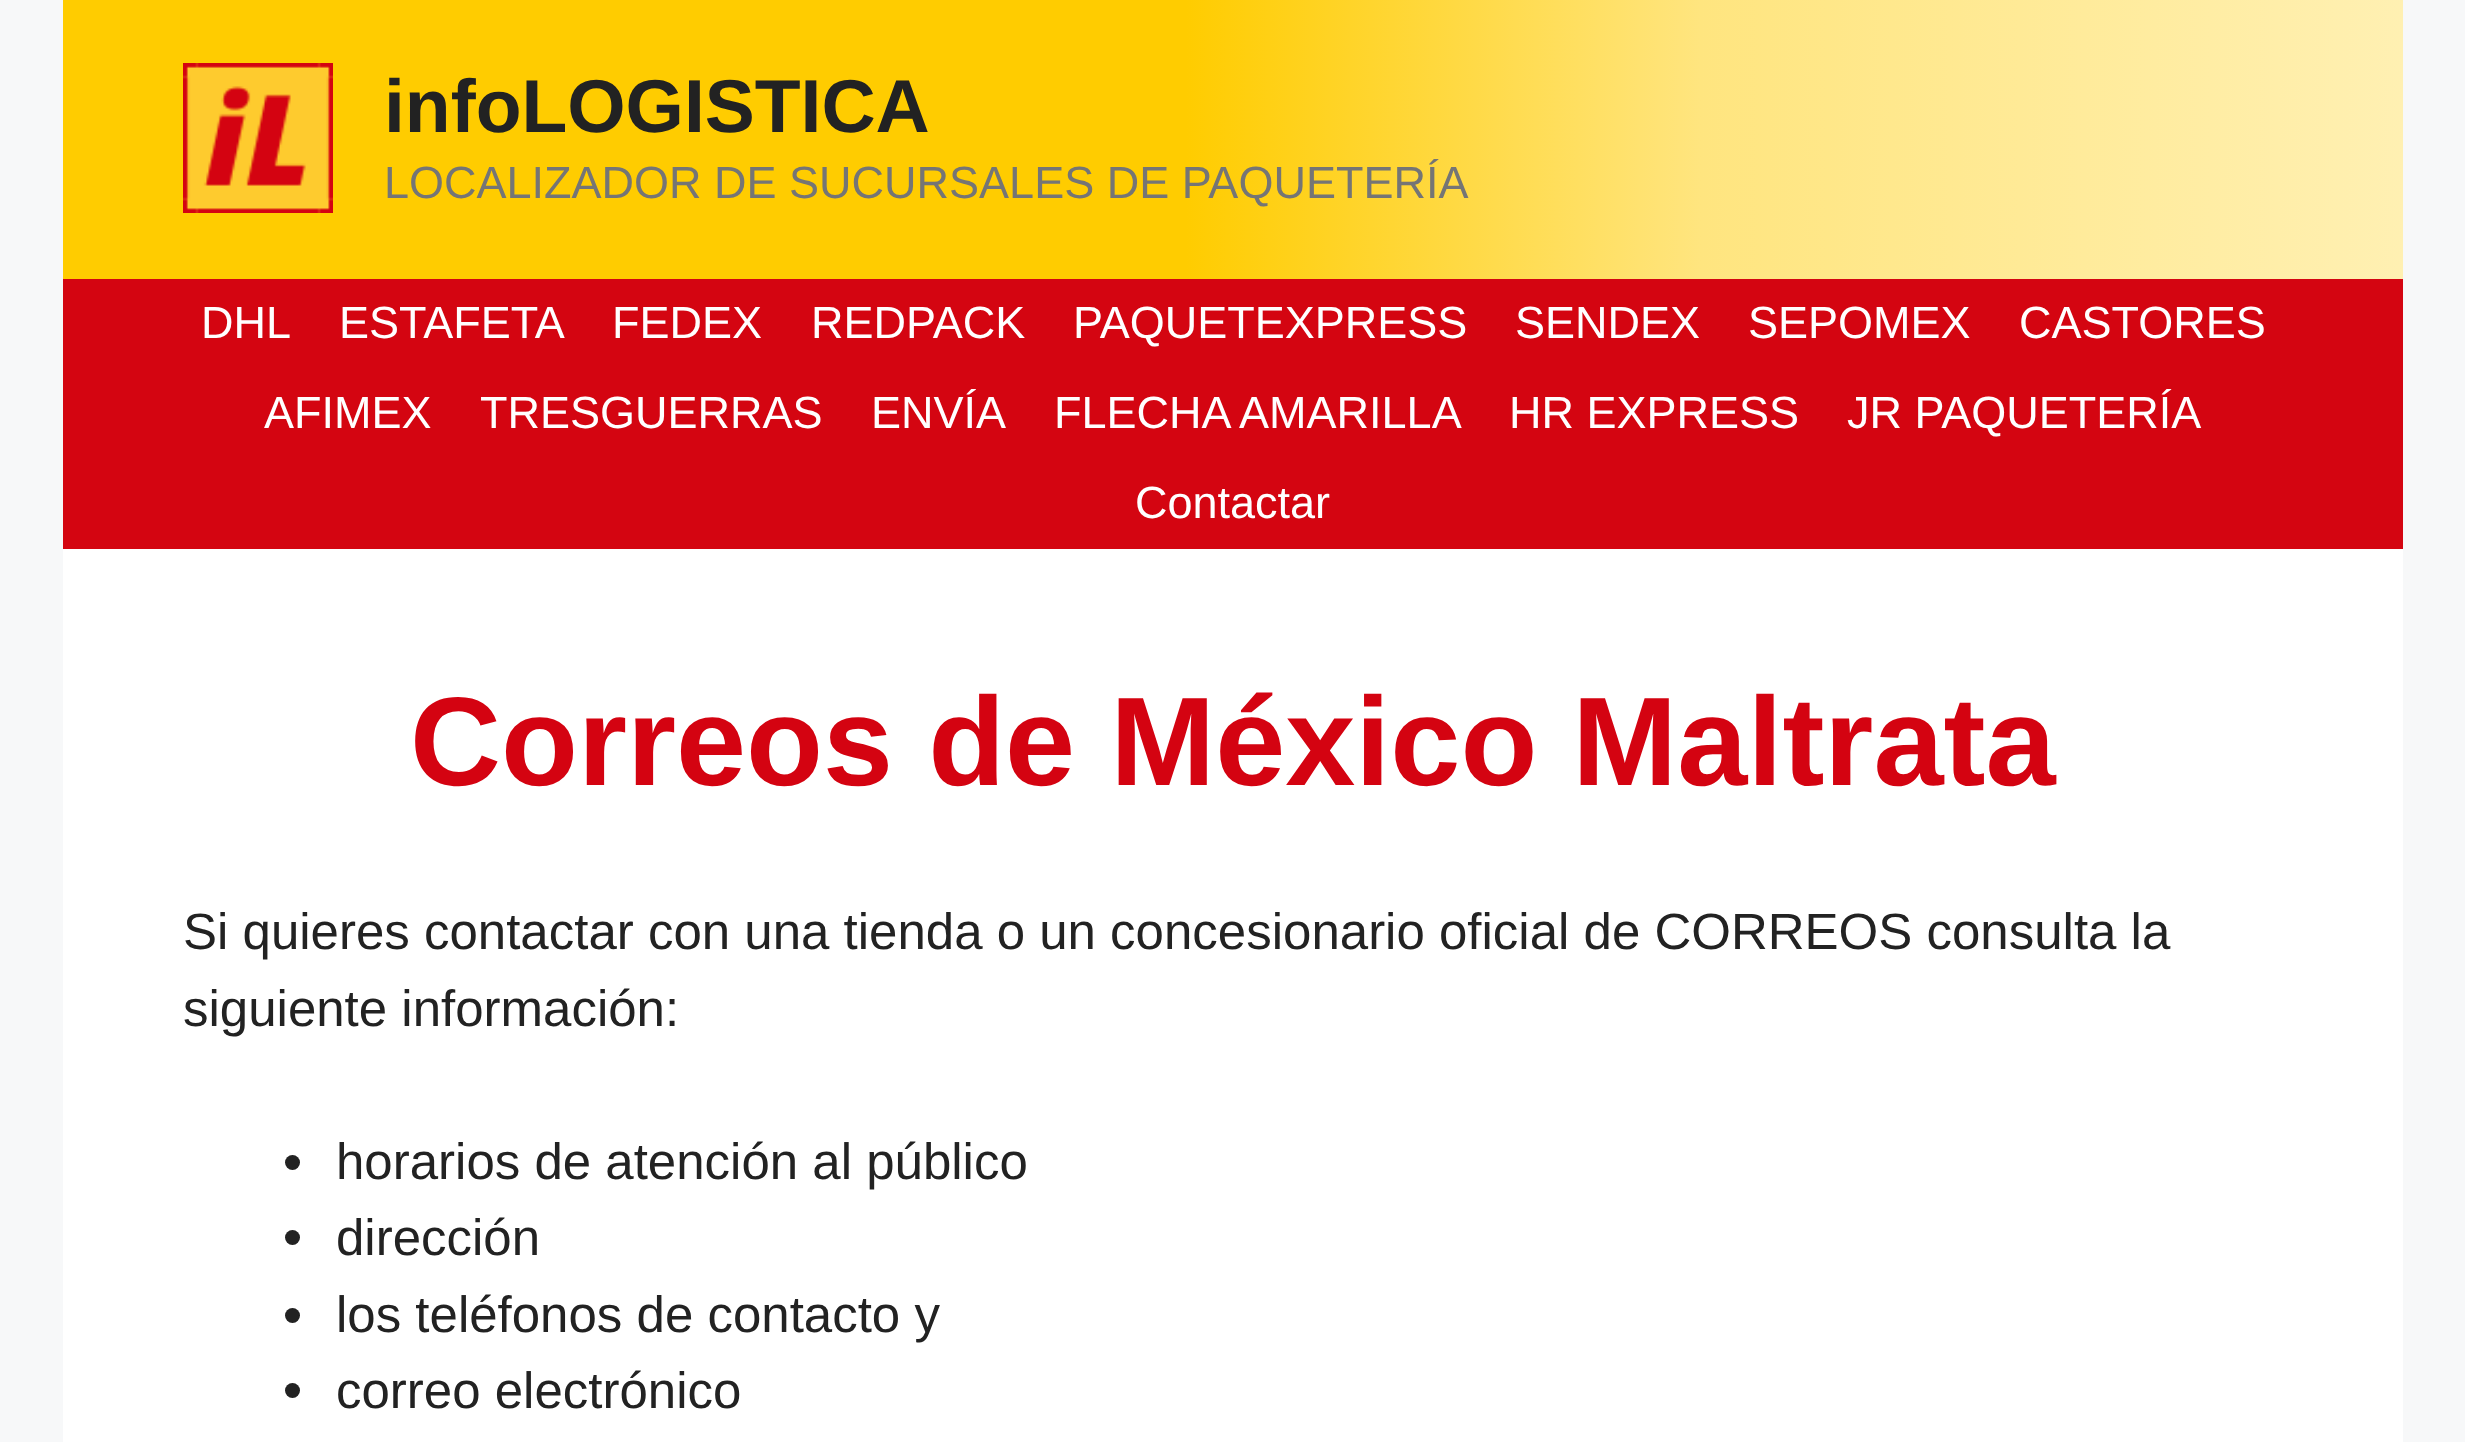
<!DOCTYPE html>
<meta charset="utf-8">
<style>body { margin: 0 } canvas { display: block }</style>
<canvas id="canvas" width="2465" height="1442"></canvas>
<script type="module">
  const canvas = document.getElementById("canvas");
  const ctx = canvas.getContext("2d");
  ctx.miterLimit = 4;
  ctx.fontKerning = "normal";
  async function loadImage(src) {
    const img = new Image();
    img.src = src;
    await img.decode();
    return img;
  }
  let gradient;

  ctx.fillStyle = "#f7f8f9";
  ctx.fillRect(0, 0, 2465, 1442);
  gradient = ctx.createLinearGradient(63, 140, 2403, 139);
  gradient.addColorStop(0, "#ffcc00");
  gradient.addColorStop(0.48, "#ffcc00");
  gradient.addColorStop(0.7, "#ffe57f");
  gradient.addColorStop(1, "#fff0b2");
  ctx.fillStyle = gradient;
  ctx.fillRect(63, 0, 2340, 279);
  ctx.drawImage(await loadImage("img1.png"), 183, 63, 150, 150);
  ctx.font = "bold 75px Liberation Sans";
  ctx.fillStyle = "#222222";
  ctx.fillText("infoLOGISTICA", 384, 132);
  ctx.font = "45px Liberation Sans";
  ctx.fillStyle = "#757575";
  ctx.fillText("LOCALIZADOR DE SUCURSALES DE PAQUETERÍA", 384, 198);
  ctx.fillStyle = "#d40511";
  ctx.fillRect(63, 279, 2340, 270);
  ctx.fillStyle = "#ffffff";
  ctx.fillText("DHL", 201, 338);
  ctx.fillText("ESTAFETA", 339, 338);
  ctx.fillText("FEDEX", 612, 338);
  ctx.fillText("REDPACK", 811, 338);
  ctx.fillText("PAQUETEXPRESS", 1073, 338);
  ctx.fillText("SENDEX", 1515, 338);
  ctx.fillText("SEPOMEX", 1748, 338);
  ctx.fillText("CASTORES", 2019, 338);
  ctx.fillText("AFIMEX", 264, 428);
  ctx.fillText("TRESGUERRAS", 480, 428);
  ctx.fillText("ENVÍA", 871, 428);
  ctx.fillText("FLECHA AMARILLA", 1054, 428);
  ctx.fillText("HR EXPRESS", 1509, 428);
  ctx.fillText("JR PAQUETERÍA", 1847, 428);
  ctx.fillText("Contactar", 1135, 518);
  ctx.fillRect(63, 549, 2340, 893);
  ctx.font = "bold 126px Liberation Sans";
  ctx.fillStyle = "#d40311";
  ctx.fillText("Correos de México Maltrata", 410, 785);
  ctx.font = "51px Liberation Sans";
  ctx.fillStyle = "#222222";
  ctx.fillText("Si quieres contactar con una tienda o un concesionario oficial de CORREOS consulta la", 183, 949);
  ctx.fillText("siguiente información:", 183, 1026);
  ctx.beginPath();
  ctx.arc(292.5, 1162.5, 7.5, 0, Math.PI * 2);
  ctx.fill();
  ctx.fillText("horarios de atención al público", 336, 1179);
  ctx.beginPath();
  ctx.arc(292.5, 1237.5, 7.5, 0, Math.PI * 2);
  ctx.fill();
  ctx.fillText("dirección", 336, 1255);
  ctx.beginPath();
  ctx.arc(292.5, 1315.5, 7.5, 0, Math.PI * 2);
  ctx.fill();
  ctx.fillText("los teléfonos de contacto y", 336, 1332);
  ctx.beginPath();
  ctx.arc(292.5, 1390.5, 7.5, 0, Math.PI * 2);
  ctx.fill();
  ctx.fillText("correo electrónico", 336, 1408);
</script>
